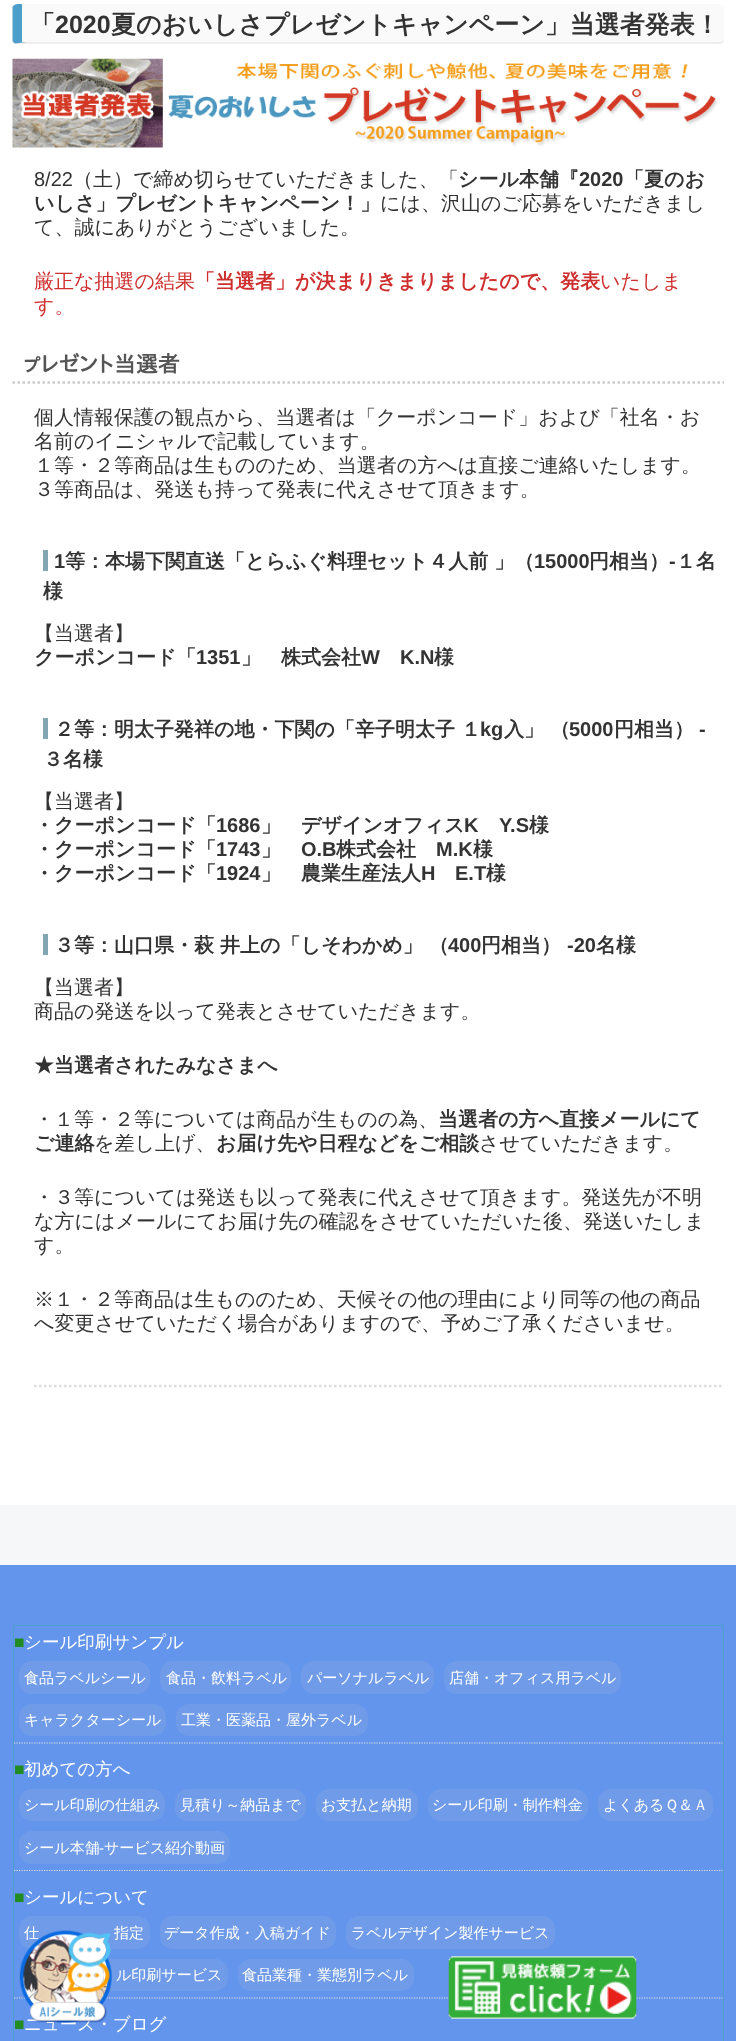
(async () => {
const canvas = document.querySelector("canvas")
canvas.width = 736
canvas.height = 2041
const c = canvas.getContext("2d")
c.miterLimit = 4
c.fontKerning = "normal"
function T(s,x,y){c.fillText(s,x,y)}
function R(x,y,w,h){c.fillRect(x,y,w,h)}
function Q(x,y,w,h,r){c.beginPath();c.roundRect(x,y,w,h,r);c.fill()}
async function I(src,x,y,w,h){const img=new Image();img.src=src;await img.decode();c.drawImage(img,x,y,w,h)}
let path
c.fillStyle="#fff"
R(0,0,736,2041)
c.fillStyle="#fafafa"
Q(13,4,711,40,5)
c.fillStyle="#eee"
path = new Path2D("M16 44l-1-1l11-1h693c2 0 4-1 5-2c0 1-2 4-3 4z")
c.fill(path)
c.fillStyle="#4b9fca"
path = new Path2D("M18 4h4v38h4.5l-11.5 1.5c-1-.5-2-1.5-2.5-2.5v-34c1-2 3-3 5.5-3z")
c.fill(path)
c.font="bold 25px WenQuanYi Zen Hei"
c.fillStyle="#333"
T("「",30,33)
c.font="bold 25px Liberation Sans"
T("2020",55,33)
c.font="bold 25px WenQuanYi Zen Hei"
T("夏のおいしさプレゼントキャンペーン」当選者発表！",111,33)
await I("1.png",12,58,706,90)
c.font="20px Liberation Sans"
T("8/22",34,186)
c.font="500 20px WenQuanYi Zen Hei"
T("（土）で締め切らせていただきました、「",73,186)
c.font="bold 20px WenQuanYi Zen Hei"
T("シール本舗『",458,186)
c.font="bold 20px Liberation Sans"
T("2020",579,186)
c.font="bold 20px WenQuanYi Zen Hei"
T("「夏のお",624,186)
T("いしさ」プレゼントキャンペーン！」",34,210)
c.font="500 20px WenQuanYi Zen Hei"
T("には、沢山のご応募をいただきまし",380,210)
T("て、誠にありがとうございました。",34,234)
c.fillStyle="#cf2e2e"
T("厳正な抽選の結果",34,288)
c.font="bold 20px WenQuanYi Zen Hei"
T("「当選者」が決まりきまりましたので、発表",195,288)
c.font="500 20px WenQuanYi Zen Hei"
T("いたしま",600,288)
T("す。",34,313)
path = new Path2D("M12.5 382.5h711.5")
c.strokeStyle="#ccc"
c.lineWidth=2.5
c.setLineDash([2.5,2.5])
c.stroke(path)
c.font="bold 22px IPAPGothic"
c.fillStyle="#555"
T("ㇷ゚レゼント当選者",23,372)
c.font="500 20px WenQuanYi Zen Hei"
c.fillStyle="#333"
T("個人情報保護の観点から、当選者は「クーポンコード」および「社名・お",34,424)
T("名前のイニシャルで記載しています。",34,448)
T("１等・２等商品は生もののため、当選者の方へは直接ご連絡いたします。",34,472)
T("３等商品は、発送も持って発表に代えさせて頂きます。",34,496)
c.fillStyle="#82a7b3"
R(43,550,5,21)
c.font="bold 20px Liberation Sans"
c.fillStyle="#333"
T("1",54,568)
c.font="bold 20px WenQuanYi Zen Hei"
T("等：本場下関直送「とらふぐ料理セット４人前 」（",65,568)
c.font="bold 20px Liberation Sans"
T("15000",534,568)
c.font="bold 20px WenQuanYi Zen Hei"
T("円相当）",589,568)
c.font="bold 20px Liberation Sans"
T("‐",669,568)
c.font="bold 20px WenQuanYi Zen Hei"
T("１名",676,568)
T("様",43,598)
c.font="500 20px WenQuanYi Zen Hei"
T("【当選者】",34,640)
c.font="bold 20px WenQuanYi Zen Hei"
T("クーポンコード「",34,664)
c.font="bold 20px Liberation Sans"
T("1351",196,664)
c.font="bold 20px WenQuanYi Zen Hei"
T("」　株式会社",241,664)
c.font="bold 20px Liberation Sans"
T("W",361,664)
T("K.N",400,664)
c.font="bold 20px WenQuanYi Zen Hei"
T("様",434,664)
c.fillStyle="#82a7b3"
R(43,718,5,21)
c.fillStyle="#333"
T("２等：明太子発祥の地・下関の「辛子明太子 １",54,736)
c.font="bold 20px Liberation Sans"
T("kg",480,736)
c.font="bold 20px WenQuanYi Zen Hei"
T("入」 （",504,736)
c.font="bold 20px Liberation Sans"
T("5000",569,736)
c.font="bold 20px WenQuanYi Zen Hei"
T("円相当）",614,736)
c.font="bold 20px Liberation Sans"
T("‐",699,736)
c.font="bold 20px WenQuanYi Zen Hei"
T("３名様",43,766)
c.font="500 20px WenQuanYi Zen Hei"
T("【当選者】",34,808)
c.font="bold 20px WenQuanYi Zen Hei"
T("・クーポンコード「",34,832)
c.font="bold 20px Liberation Sans"
T("1686",216,832)
c.font="bold 20px WenQuanYi Zen Hei"
T("」　デザインオフィス",261,832)
c.font="bold 20px Liberation Sans"
T("K",464,832)
T("Y.S",499,832)
c.font="bold 20px WenQuanYi Zen Hei"
T("様",529,832)
T("・クーポンコード「",34,856)
c.font="bold 20px Liberation Sans"
T("1743",216,856)
c.font="bold 20px WenQuanYi Zen Hei"
T("」",261,856)
c.font="bold 20px Liberation Sans"
T("O.B",301,856)
c.font="bold 20px WenQuanYi Zen Hei"
T("株式会社",336,856)
c.font="bold 20px Liberation Sans"
T("M.K",436,856)
c.font="bold 20px WenQuanYi Zen Hei"
T("様",473,856)
T("・クーポンコード「",34,880)
c.font="bold 20px Liberation Sans"
T("1924",216,880)
c.font="bold 20px WenQuanYi Zen Hei"
T("」　農業生産法人",261,880)
c.font="bold 20px Liberation Sans"
T("H",421,880)
T("E.T",455,880)
c.font="bold 20px WenQuanYi Zen Hei"
T("様",486,880)
c.fillStyle="#82a7b3"
R(43,934,5,21)
c.fillStyle="#333"
T("３等：山口県・萩 井上の「しそわかめ」 （",54,952)
c.font="bold 20px Liberation Sans"
T("400",448,952)
c.font="bold 20px WenQuanYi Zen Hei"
T("円相当）",481,952)
c.font="bold 20px Liberation Sans"
T("‐20",567,952)
c.font="bold 20px WenQuanYi Zen Hei"
T("名様",596,952)
c.font="500 20px WenQuanYi Zen Hei"
T("【当選者】",34,994)
T("商品の発送を以って発表とさせていただきます。",34,1018)
c.font="bold 20px WenQuanYi Zen Hei"
T("★当選者されたみなさまへ",34,1072)
c.font="500 20px WenQuanYi Zen Hei"
T("・１等・２等については商品が生ものの為、",34,1126)
c.font="bold 20px WenQuanYi Zen Hei"
T("当選者の方へ直接メールにて",438,1126)
T("ご連絡",34,1150)
c.font="500 20px WenQuanYi Zen Hei"
T("を差し上げ、",94,1150)
c.font="bold 20px WenQuanYi Zen Hei"
T("お届け先や日程などをご相談",216,1150)
c.font="500 20px WenQuanYi Zen Hei"
T("させていただきます。",479,1150)
T("・３等については発送も以って発表に代えさせて頂きます。発送先が不明",34,1204)
T("な方にはメールにてお届け先の確認をさせていただいた後、発送いたしま",34,1228)
T("す。",34,1252)
T("※１・２等商品は生もののため、天候その他の理由により同等の他の商品",34,1306)
T("へ変更させていただく場合がありますので、予めご了承くださいませ。",34,1330)
path = new Path2D("M34 1386h690")
c.strokeStyle="#ddd"
c.stroke(path)
c.fillStyle="#6495ed"
R(0,1565,736,476)
c.fillStyle="#f6f7f9"
R(0,1505,736,60)
c.strokeStyle="#4b9fca"
c.lineWidth=1
c.setLineDash([])
c.strokeRect(13.5,1625.5,710,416)
path = new Path2D("M14 1743h708.5")
c.strokeStyle="#ddd"
c.lineWidth=1.2
c.setLineDash([1.25,1.25])
c.stroke(path)
c.font="17.5px Liberation Sans"
c.fillStyle="#228b22"
T("■",14,1648)
c.font="500 17.5px WenQuanYi Zen Hei"
c.fillStyle="#fff"
T("シール印刷サンプル",24,1648)
c.fillStyle="#709be8"
Q(19,1661,131,33,13)
c.font="500 15px WenQuanYi Zen Hei"
c.fillStyle="#fff"
T("食品ラベルシール",24,1683)
c.fillStyle="#709be8"
Q(160,1661,131,33,13)
c.fillStyle="#fff"
T("食品・飲料ラベル",166,1683)
c.fillStyle="#709be8"
Q(301,1661,133,33,13)
c.fillStyle="#fff"
T("パーソナルラベル",307,1683)
c.fillStyle="#709be8"
Q(444,1661,177,33,13)
c.fillStyle="#fff"
T("店舗・オフィス用ラベル",449,1683)
c.fillStyle="#709be8"
Q(19,1704,147,32,13)
c.fillStyle="#fff"
T("キャラクターシール",24,1725)
c.fillStyle="#709be8"
Q(176,1704,192,32,13)
c.fillStyle="#fff"
T("工業・医薬品・屋外ラベル",181,1725)
path = new Path2D("M14 1870.5h708.5")
c.stroke(path)
c.font="17.5px Liberation Sans"
c.fillStyle="#228b22"
T("■",14,1775)
c.font="500 17.5px WenQuanYi Zen Hei"
c.fillStyle="#fff"
T("初めての方へ",24,1775)
c.fillStyle="#709be8"
Q(19,1789,146,32,13)
c.font="500 15px WenQuanYi Zen Hei"
c.fillStyle="#fff"
T("シール印刷の仕組み",24,1810)
c.fillStyle="#709be8"
Q(175,1789,131,32,13)
c.fillStyle="#fff"
T("見積り～納品まで",180,1810)
c.fillStyle="#709be8"
Q(316,1789,102,32,13)
c.fillStyle="#fff"
T("お支払と納期",321,1810)
c.fillStyle="#709be8"
Q(428,1789,160,32,13)
c.fillStyle="#fff"
T("シール印刷・制作料金",432,1810)
c.fillStyle="#709be8"
Q(598,1789,115,32,13)
c.fillStyle="#fff"
T("よくあるＱ＆Ａ",603,1810)
c.fillStyle="#709be8"
Q(19,1831,211,33,13)
c.fillStyle="#fff"
T("シール本舗",24,1853)
c.font="15px Liberation Sans"
T("‐",99,1853)
c.font="500 15px WenQuanYi Zen Hei"
T("サービス紹介動画",104,1853)
path = new Path2D("M14 1998h708.5")
c.stroke(path)
c.font="17.5px Liberation Sans"
c.fillStyle="#228b22"
T("■",14,1903)
c.font="500 17.5px WenQuanYi Zen Hei"
c.fillStyle="#fff"
T("シールについて",24,1903)
c.fillStyle="#709be8"
Q(19,1916,131,33,13)
c.font="500 15px WenQuanYi Zen Hei"
c.fillStyle="#fff"
T("仕",24,1938)
T("指定",114,1938)
c.fillStyle="#709be8"
Q(160,1916,176,33,13)
c.fillStyle="#fff"
T("データ作成・入稿ガイド",164,1938)
c.fillStyle="#709be8"
Q(346,1916,209,33,13)
c.fillStyle="#fff"
T("ラベルデザイン製作サービス",351,1938)
c.fillStyle="#709be8"
Q(19,1959,209,32,13)
c.fillStyle="#fff"
T("ル印刷サービス",116,1980)
c.fillStyle="#709be8"
Q(238,1959,176,32,13)
c.fillStyle="#fff"
T("食品業種・業態別ラベル",242,1980)
c.font="17.5px Liberation Sans"
c.fillStyle="#228b22"
T("■",14,2030)
c.font="500 17.5px WenQuanYi Zen Hei"
c.fillStyle="#fff"
T("ニュース・ブログ",24,2030)
await I("2.png",448,1956,189,63)
await I("3.png",19,1930,93,93)
})()
